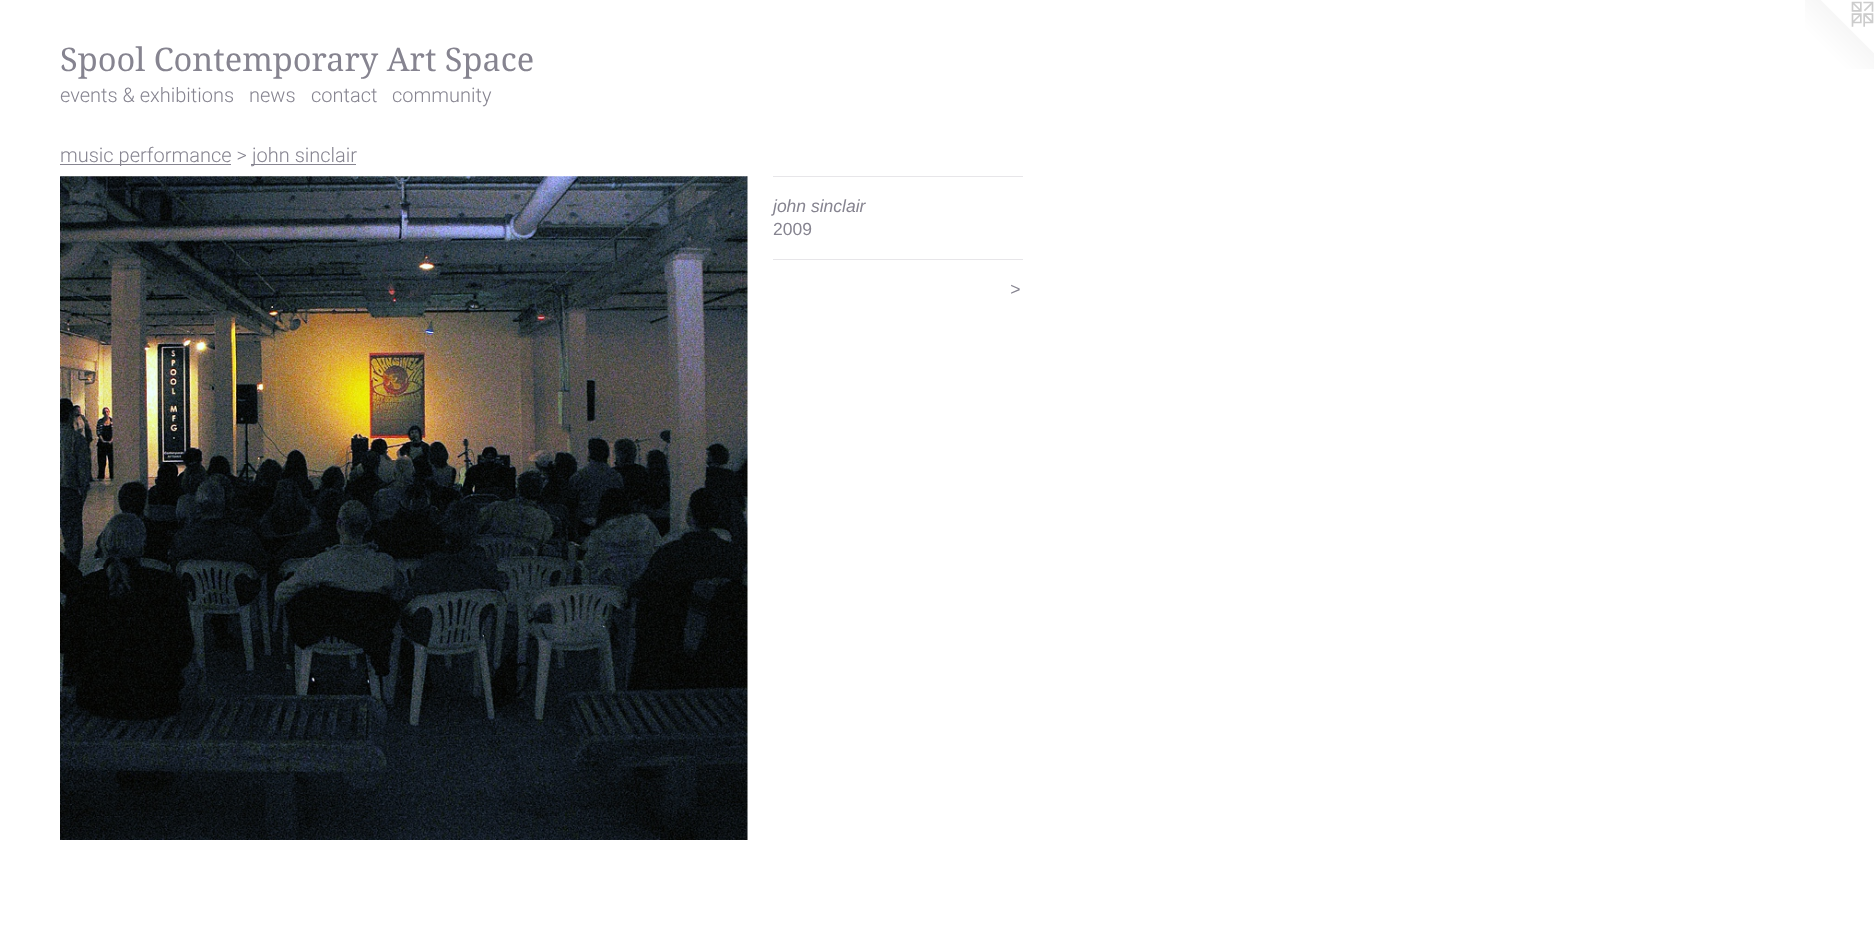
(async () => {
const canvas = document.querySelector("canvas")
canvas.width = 1874
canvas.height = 948
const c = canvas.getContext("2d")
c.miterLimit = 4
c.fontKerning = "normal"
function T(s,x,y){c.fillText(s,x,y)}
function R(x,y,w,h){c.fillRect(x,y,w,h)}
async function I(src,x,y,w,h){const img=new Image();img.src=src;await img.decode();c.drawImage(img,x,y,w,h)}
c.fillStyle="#fff"
R(0,0,1874,948)
c.font="32.5px Droid Serif"
c.fillStyle="#868490"
T("Spool Contemporary Art Space",60,71)
await I("1.png",1805,0,69,69)
c.font="300 20px Roboto"
T("events & exhibitions",60,102)
T("news",249,102)
T("contact",311,102)
T("community",392,102)
R(60,164,171,1)
T("music performance >",60,162)
R(251,164,105,1)
T("john sinclair",252,162)
await I("2.png",60,176,688,664)
c.fillStyle="#e7e6e9"
R(773,176,250,1)
c.font="italic 17.5px Liberation Sans"
c.fillStyle="#868490"
T("john sinclair",773,212)
c.font="17.5px Liberation Sans"
T("2009",773,235)
c.fillStyle="#e7e6e9"
R(773,259,250,1)
c.letterSpacing="1px"
c.font="italic 17.5px Liberation Sans"
c.fillStyle="#868490"
T(">",1010,295)
})()
